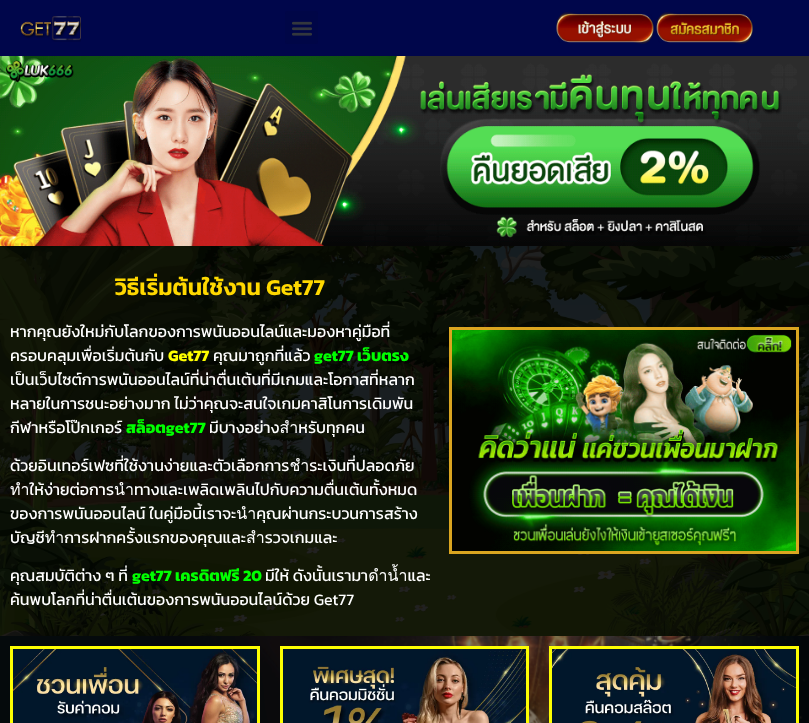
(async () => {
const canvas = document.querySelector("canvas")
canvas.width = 809
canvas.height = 723
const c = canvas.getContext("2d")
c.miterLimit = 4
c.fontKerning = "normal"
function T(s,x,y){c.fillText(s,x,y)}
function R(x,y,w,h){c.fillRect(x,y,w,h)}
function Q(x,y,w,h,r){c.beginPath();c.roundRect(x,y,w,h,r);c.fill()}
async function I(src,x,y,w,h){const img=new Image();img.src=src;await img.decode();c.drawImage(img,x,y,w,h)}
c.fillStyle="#00064b"
R(0,0,809,723)
await I("1.png",20,16,61,26)
c.fillStyle="#000647"
Q(285,11,33,33,3)
await I("2.png",292,21,20,15)
await I("3.png",556,12,98,32)
await I("4.png",656,12,97,32)
await I("5.png",0,56,809,190)
await I("6.png",0,246,809,390)
c.font="600 23px Kanit"
c.fillStyle="#ffd800"
T("วิธีเริ่มต้นใช้งาน Get77",115,295)
c.font="16px Kanit"
c.fillStyle="#fff"
T("หากคุณยังใหม่กับโลกของการพนันออนไลน์และมองหาคู่มือที่",10,337)
T("ครอบคลุมเพื่อเริ่มต้นกับ",10,361)
c.font="bold 16px Kanit"
c.fillStyle="#ff0"
T("Get77",168,361)
c.font="16px Kanit"
c.fillStyle="#fff"
T("คุณมาถูกที่แล้ว",213,361)
c.font="bold 16px Kanit"
c.fillStyle="#0f0"
T("get77 เว็บตรง",314,361)
c.font="16px Kanit"
c.fillStyle="#fff"
T("เป็นเว็บไซต์การพนันออนไลน์ที่น่าตื่นเต้นที่มีเกมและโอกาสที่หลาก",10,385)
T("หลายในการชนะอย่างมาก ไม่ว่าคุณจะสนใจเกมคาสิโนการเดิมพัน",10,409)
T("กีฬาหรือโป๊กเกอร์",10,433)
c.font="bold 16px Kanit"
c.fillStyle="#0f0"
T("สล็อตget77",126,433)
c.font="16px Kanit"
c.fillStyle="#fff"
T("มีบางอย่างสำหรับทุกคน",209,433)
T("ด้วยอินเทอร์เฟซที่ใช้งานง่ายและตัวเลือกการชำระเงินที่ปลอดภัย",10,471)
T("ทำให้ง่ายต่อการนำทางและเพลิดเพลินไปกับความตื่นเต้นทั้งหมด",10,495)
T("ของการพนันออนไลน์ ในคู่มือนี้เราจะนำคุณผ่านกระบวนการสร้าง",10,519)
T("บัญชีทำการฝากครั้งแรกของคุณและสำรวจเกมและ",10,543)
T("คุณสมบัติต่าง ๆ ที่",10,581)
c.font="bold 16px Kanit"
c.fillStyle="#0f0"
T("get77 เครดิตฟรี 20",132,581)
c.font="16px Kanit"
c.fillStyle="#fff"
T("มีให้ ดังนั้นเรามาดำน้ำและ",265,581)
T("ค้นพบโลกที่น่าตื่นเต้นของการพนันออนไลน์ด้วย Get77",10,605)
c.strokeStyle="#daa520"
c.lineWidth=3
c.strokeRect(450.5,328.5,347,224)
await I("7.png",452,330,344,221)
await I("8.png",0,636,809,87)
c.strokeStyle="#fdfe02"
c.strokeRect(11.5,647.5,247,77)
await I("9.png",13,649,244,74)
c.strokeRect(281.5,647.5,246,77)
await I("10.png",283,649,243,74)
c.strokeRect(550.5,647.5,247,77)
await I("11.png",552,649,244,74)
})()
